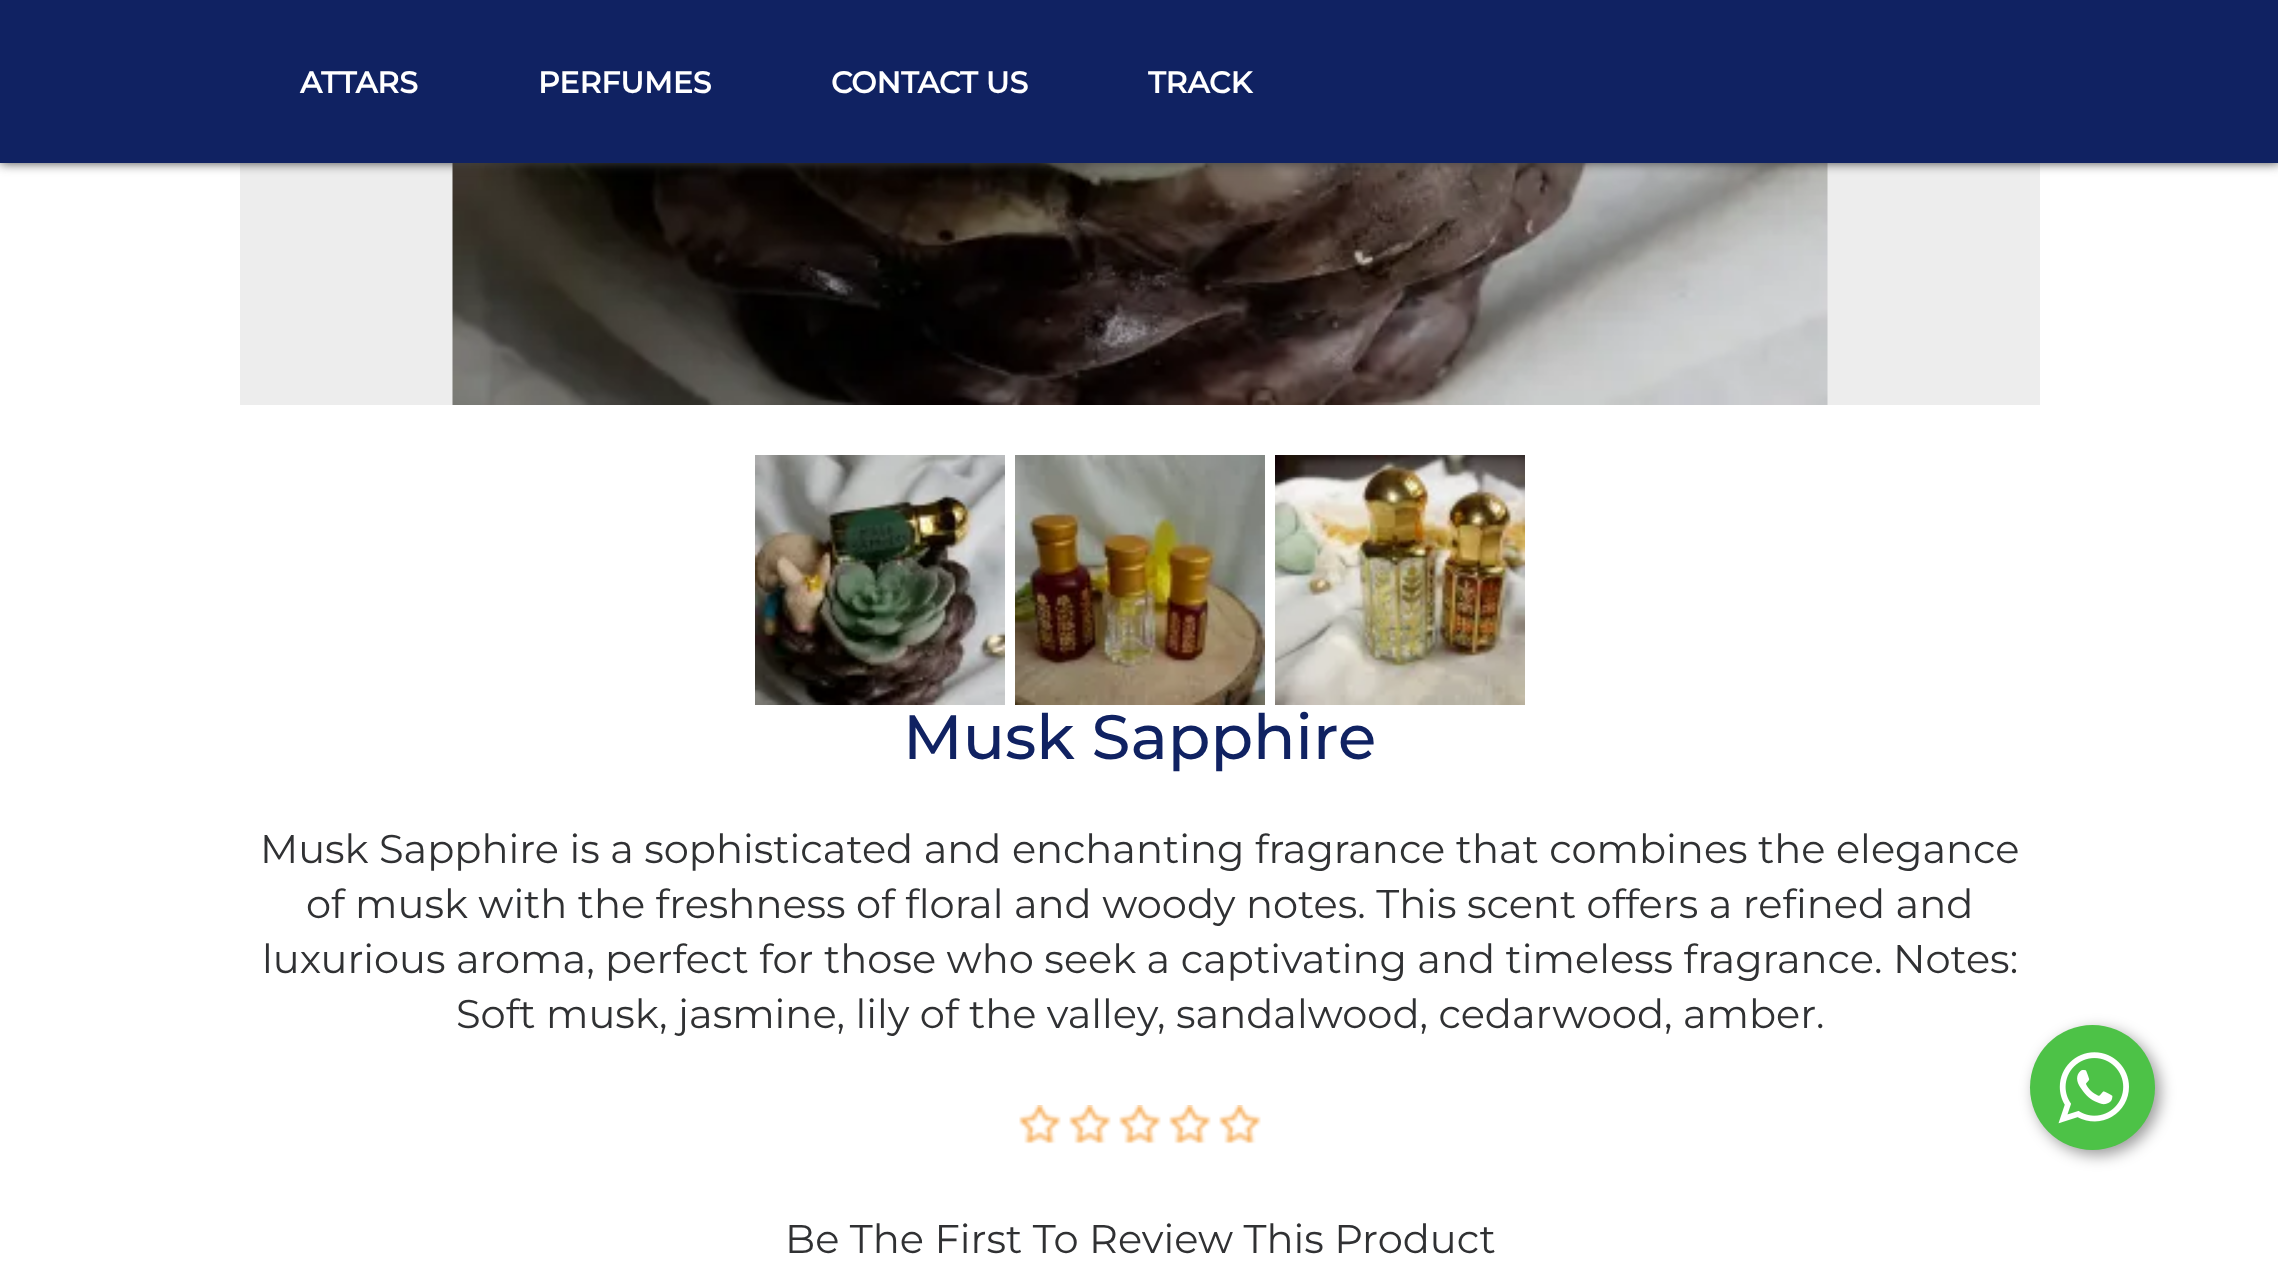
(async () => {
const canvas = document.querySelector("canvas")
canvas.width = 2278
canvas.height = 1275
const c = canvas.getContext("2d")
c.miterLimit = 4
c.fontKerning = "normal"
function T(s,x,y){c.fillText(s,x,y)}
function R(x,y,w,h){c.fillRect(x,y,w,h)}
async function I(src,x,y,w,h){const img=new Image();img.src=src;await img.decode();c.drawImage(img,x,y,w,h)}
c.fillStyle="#fff"
R(0,0,2278,1275)
c.fillStyle="#ededed"
R(240,163,1800,242)
await I("1.png",452,163,1376,242)
c.fillStyle="#444"
c.filter="blur(6px)"
c.beginPath()
c.rect(0,0,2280,163)
c.fill()
c.filter="none"
c.fillStyle="#102262"
R(0,0,2278,163)
c.font="bold 30px Montserrat"
c.fillStyle="#fff"
T("ATTARS",300,93)
T("PERFUMES",538,93)
T("CONTACT US",831,93)
T("TRACK",1148,93)
await I("2.png",755,455,250,250)
await I("3.png",1015,455,250,250)
await I("4.png",1275,455,250,250)
c.font="500 62.5px Montserrat"
c.fillStyle="#102262"
T("Musk Sapphire",903,759)
c.font="40px Montserrat"
c.fillStyle="#303133"
T("Musk Sapphire is a sophisticated and enchanting fragrance that combines the elegance",260,863)
T("of musk with the freshness of floral and woody notes. This scent offers a refined and",306,918)
T("luxurious aroma, perfect for those who seek a captivating and timeless fragrance. Notes:",262,973)
T("Soft musk, jasmine, lily of the valley, sandalwood, cedarwood, amber.",456,1028)
await I("5.png",1019,1105,242,39)
T("Be The First To Review This Product",785,1253)
c.fillStyle="#00000066"
c.filter="blur(7.5px)"
c.beginPath()
c.roundRect(2035,1030,125,125,62.5)
c.fill()
c.filter="none"
c.fillStyle="#4dc247"
c.beginPath()
c.arc(2092.5,1087.5,62.5,0,7)
c.fill()
await I("6.png",2058,1052,71,72)
})()
